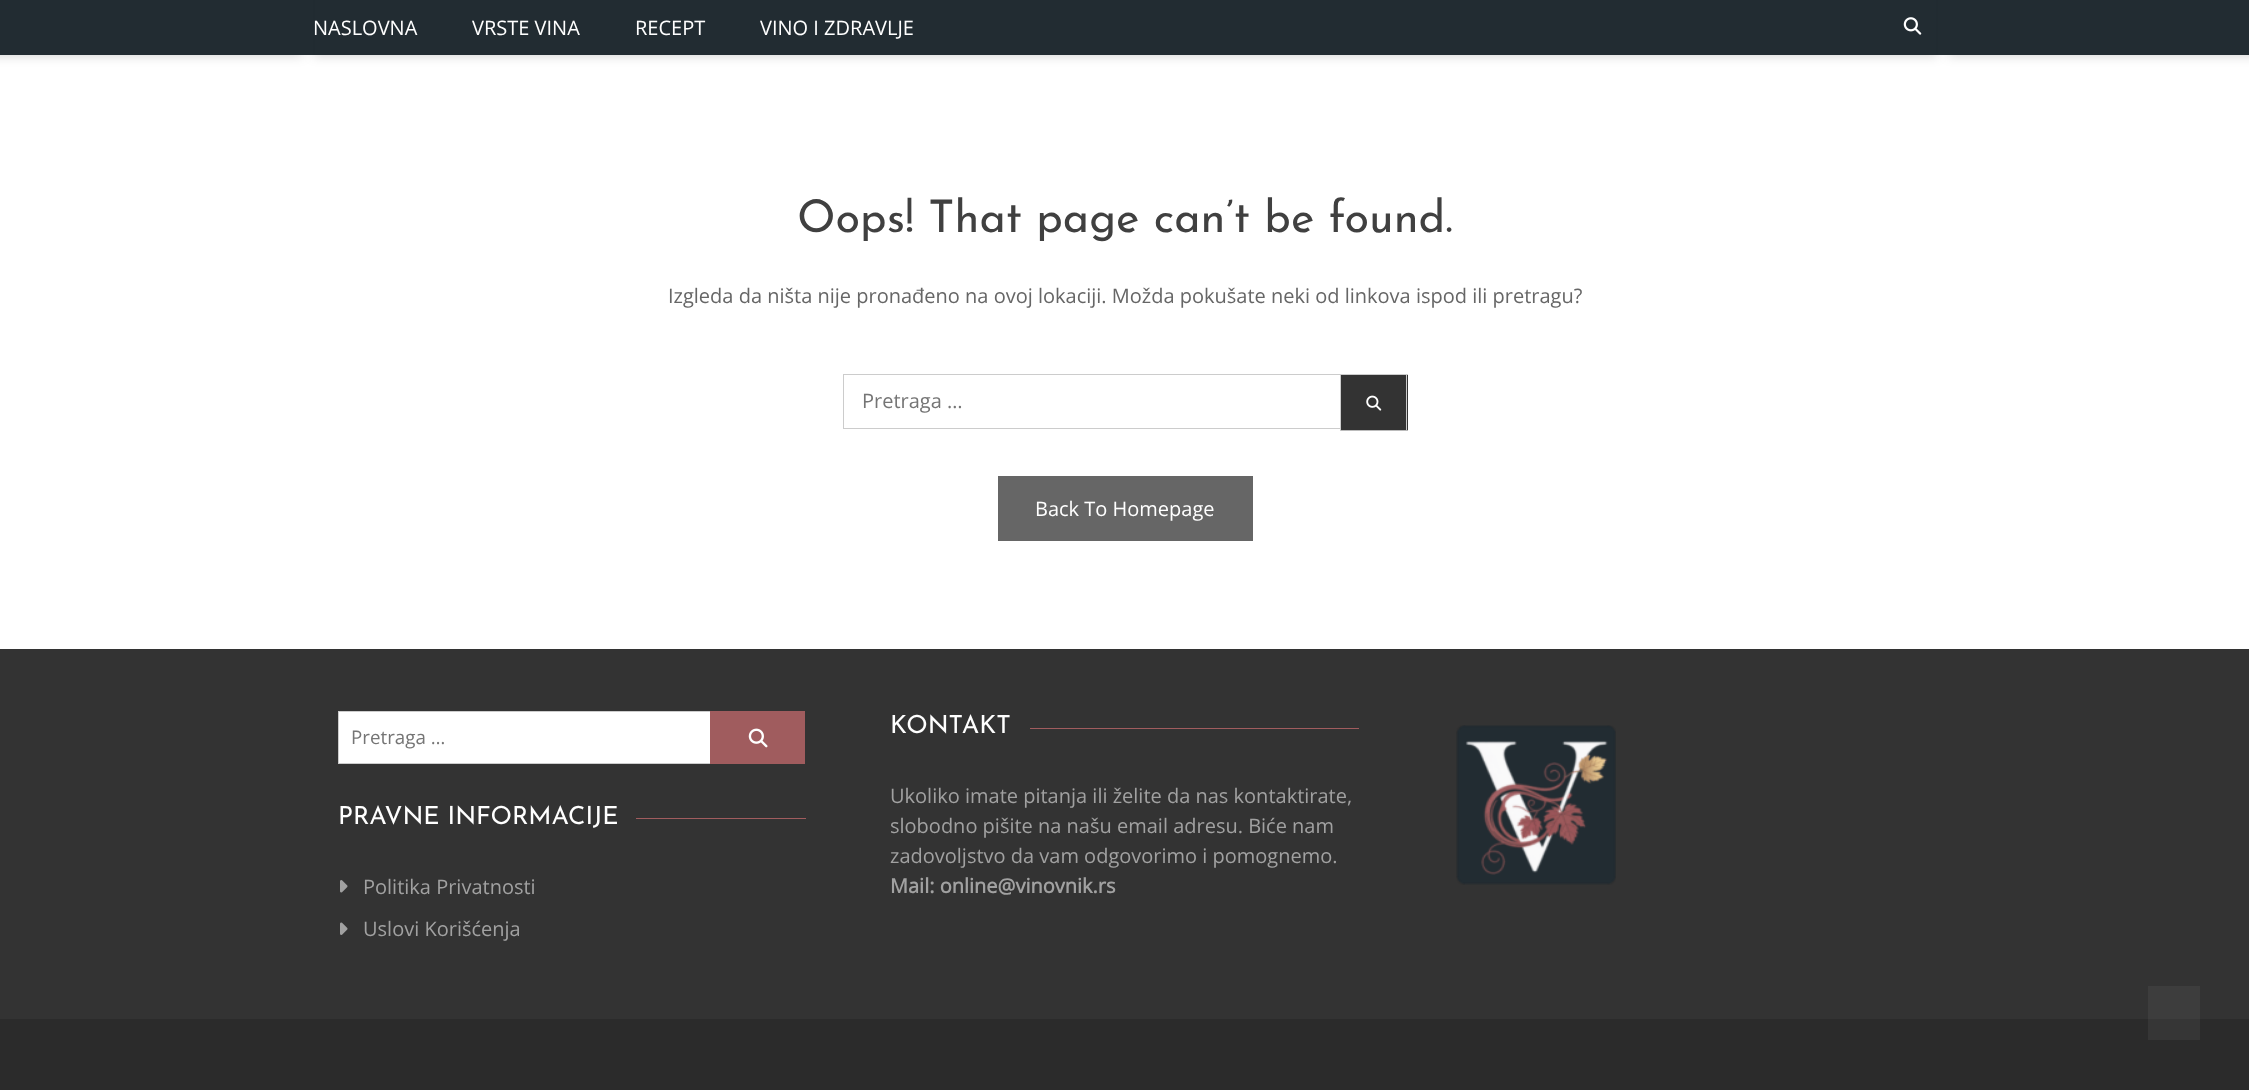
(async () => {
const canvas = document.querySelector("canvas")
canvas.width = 2249
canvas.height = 1090
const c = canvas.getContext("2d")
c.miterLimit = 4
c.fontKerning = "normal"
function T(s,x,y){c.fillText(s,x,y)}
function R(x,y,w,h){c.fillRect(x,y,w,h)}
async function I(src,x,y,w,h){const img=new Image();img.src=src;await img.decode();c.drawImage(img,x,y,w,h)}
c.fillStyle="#fff"
R(0,0,2249,1090)
c.fillStyle="#00000033"
c.filter="blur(6px)"
c.beginPath()
c.rect(313,0,1625,55)
c.fill()
c.filter="none"
c.fillStyle="#222c32"
R(313,0,1625,55)
c.fillStyle="#00000033"
c.filter="blur(6px)"
c.beginPath()
c.rect(-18,0,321,55)
c.fill()
c.filter="none"
c.fillStyle="#222c32"
R(0,0,313,55)
c.font="20px Open Sans"
c.fillStyle="#fff"
T("NASLOVNA",313,35)
T("VRSTE VINA",472,35)
T("RECEPT",635,35)
T("VINO I ZDRAVLJE",760,35)
await I("1.png",1903,17,19,18)
c.fillStyle="#00000033"
c.filter="blur(6px)"
c.beginPath()
c.rect(1948,0,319,55)
c.fill()
c.filter="none"
c.fillStyle="#222c32"
R(1938,0,311,55)
c.font="100 45px Josefin Sans"
c.fillStyle="#404040"
T("Oops! That page can’t be found.",797,232)
c.font="20px Open Sans"
c.fillStyle="#666"
T("Izgleda da ništa nije pronađeno na ovoj lokaciji. Možda pokušate neki od linkova ispod ili pretragu?",668,303)
c.strokeStyle="#ccc"
c.strokeRect(843.5,374.5,499,54)
c.fillStyle="#757575"
T("Pretraga …",862,408)
c.fillStyle="#333"
R(1341,375,67,55)
c.fillStyle="#ccc"
R(1340,374,68,1)
R(1406,374,1,57)
c.fillStyle="#bbb"
R(1340,430,68,1)
c.fillStyle="#ccc"
R(1340,374,1,57)
await I("2.png",1366,395,16,16)
c.fillStyle="#666"
R(998,476,255,65)
c.fillStyle="#fff"
T("Back To Homepage",1035,516)
c.fillStyle="#333"
R(0,649,2249,370)
c.fillStyle="#3d3d3d"
R(2148,986,52,33)
c.fillStyle="#fff"
R(339,712,371,51)
c.strokeRect(338.5,711.5,374,52)
c.font="18.75px Open Sans"
c.fillStyle="#757575"
T("Pretraga …",351,744)
c.fillStyle="#a05c5e"
R(710,711,95,53)
await I("3.png",748,728,20,20)
c.font="100 25px Josefin Sans"
c.fillStyle="#fff"
T("PRAVNE INFORMACIJE",338,824)
c.fillStyle="#a05c5e"
R(636,818,170,1)
await I("4.png",340,880,8,13)
c.font="20px Open Sans"
c.fillStyle="#a1a1a1"
T("Politika Privatnosti",363,894)
await I("5.png",340,922,8,13)
T("Uslovi Korišćenja",363,936)
c.font="100 25px Josefin Sans"
c.fillStyle="#fff"
T("KONTAKT",890,733)
c.fillStyle="#a05c5e"
R(1030,728,329,1)
c.font="20px Open Sans"
c.fillStyle="#a1a1a1"
T("Ukoliko imate pitanja ili želite da nas kontaktirate,",890,803)
T("slobodno pišite na našu email adresu. Biće nam",890,833)
T("zadovoljstvo da vam odgovorimo i pomognemo.",890,863)
c.font="bold 20px Open Sans"
T("Mail: online@vinovnik.rs",890,893)
await I("6.png",1456,725,160,160)
c.fillStyle="#2b2b2b"
R(0,1019,2249,71)
c.fillStyle="#363636"
R(2148,1019,52,21)
})()
